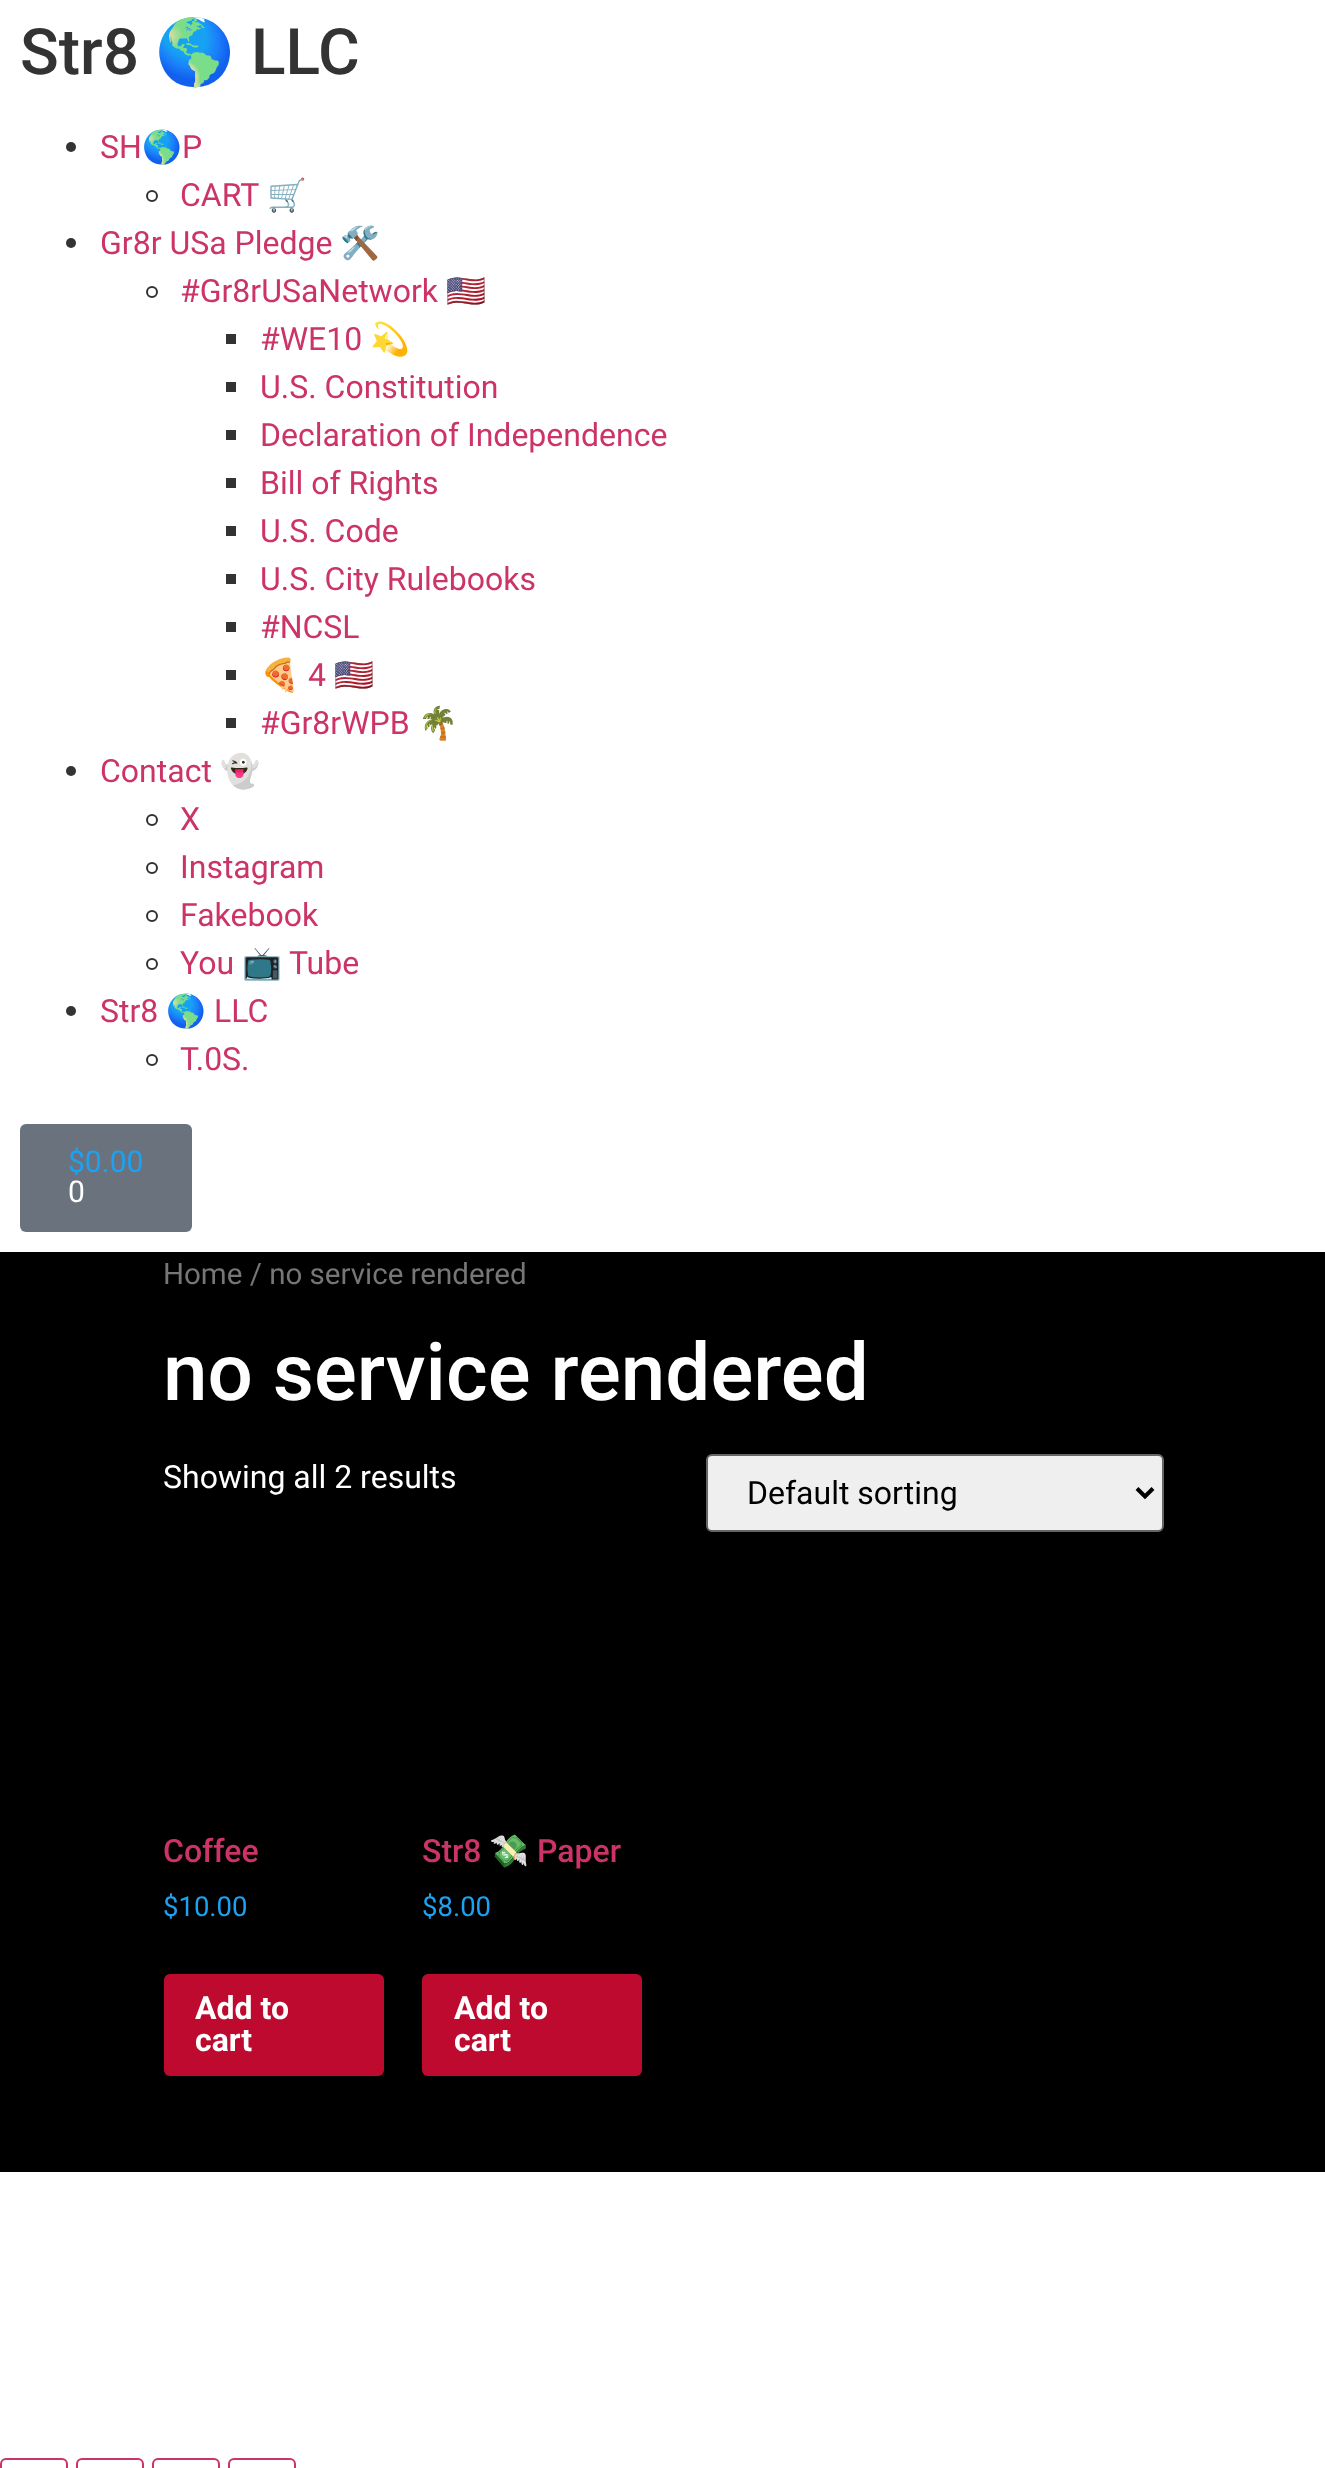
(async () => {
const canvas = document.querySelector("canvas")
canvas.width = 1325
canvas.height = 2468
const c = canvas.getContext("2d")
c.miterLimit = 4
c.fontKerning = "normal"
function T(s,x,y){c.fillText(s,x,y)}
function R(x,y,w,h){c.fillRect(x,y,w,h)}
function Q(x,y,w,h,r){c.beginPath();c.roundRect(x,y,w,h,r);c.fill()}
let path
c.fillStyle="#fff"
R(0,0,1325,2468)
c.font="500 64px Roboto"
c.fillStyle="#333"
T("Str8",20,74)
c.font="64px Noto Color Emoji"
T("🌎",155,74)
c.font="500 64px Roboto"
T("LLC",251,74)
c.beginPath()
c.arc(71,147,5,0,7)
c.fill()
c.font="32px Roboto"
c.fillStyle="#c36"
T("SH",100,158)
c.font="32px Noto Color Emoji"
T("🌎",142,158)
c.font="32px Roboto"
T("P",182,158)
c.beginPath()
c.arc(152,196,5,0,7)
c.strokeStyle="#333"
c.lineWidth=2
c.stroke()
T("CART",180,206)
c.font="32px Noto Color Emoji"
T("🛒",267,206)
c.fillStyle="#333"
c.beginPath()
c.arc(71,243,5,0,7)
c.fill()
c.font="32px Roboto"
c.fillStyle="#c36"
T("Gr8r USa Pledge",100,254)
c.font="32px Noto Color Emoji"
T("🛠️",340,254)
c.beginPath()
c.arc(152,292,5,0,7)
c.stroke()
c.font="32px Roboto"
T("#Gr8rUSaNetwork",180,302)
c.font="32px Noto Color Emoji"
T("🇺🇸",446,302)
c.fillStyle="#333"
R(226,334,10,10)
c.font="32px Roboto"
c.fillStyle="#c36"
T("#WE10",260,350)
c.font="32px Noto Color Emoji"
T("💫",370,350)
c.fillStyle="#333"
R(226,382,10,10)
c.font="32px Roboto"
c.fillStyle="#c36"
T("U.S. Constitution",260,398)
c.fillStyle="#333"
R(226,430,10,10)
c.fillStyle="#c36"
T("Declaration of Independence",260,446)
c.fillStyle="#333"
R(226,478,10,10)
c.fillStyle="#c36"
T("Bill of Rights",260,494)
c.fillStyle="#333"
R(226,526,10,10)
c.fillStyle="#c36"
T("U.S. Code",260,542)
c.fillStyle="#333"
R(226,574,10,10)
c.fillStyle="#c36"
T("U.S. City Rulebooks",260,590)
c.fillStyle="#333"
R(226,622,10,10)
c.fillStyle="#c36"
T("#NCSL",260,638)
c.fillStyle="#333"
R(226,670,10,10)
c.font="32px Noto Color Emoji"
c.fillStyle="#c36"
T("🍕",260,686)
c.font="32px Roboto"
T("4",308,686)
c.font="32px Noto Color Emoji"
T("🇺🇸",334,686)
c.fillStyle="#333"
R(226,718,10,10)
c.font="32px Roboto"
c.fillStyle="#c36"
T("#Gr8rWPB",260,734)
c.font="32px Noto Color Emoji"
T("🌴",418,734)
c.fillStyle="#333"
c.beginPath()
c.arc(71,771,5,0,7)
c.fill()
c.font="32px Roboto"
c.fillStyle="#c36"
T("Contact",100,782)
c.font="32px Noto Color Emoji"
T("👻",220,782)
c.beginPath()
c.arc(152,820,5,0,7)
c.stroke()
c.font="32px Roboto"
T("X",180,830)
c.beginPath()
c.arc(152,868,5,0,7)
c.stroke()
T("Instagram",180,878)
c.beginPath()
c.arc(152,916,5,0,7)
c.stroke()
T("Fakebook",180,926)
c.beginPath()
c.arc(152,964,5,0,7)
c.stroke()
T("You",180,974)
c.font="32px Noto Color Emoji"
T("📺",242,974)
c.font="32px Roboto"
T("Tube",289,974)
c.fillStyle="#333"
c.beginPath()
c.arc(71,1011,5,0,7)
c.fill()
c.fillStyle="#c36"
T("Str8",100,1022)
c.font="32px Noto Color Emoji"
T("🌎",166,1022)
c.font="32px Roboto"
T("LLC",214,1022)
c.beginPath()
c.arc(152,1060,5,0,7)
c.stroke()
T("T.0S.",180,1070)
c.fillStyle="#69727d"
Q(20,1124,172,108,6)
c.font="30px Roboto"
c.fillStyle="#1da1f2"
T("$0.00",68,1172)
c.fillStyle="#fff"
T("0",68,1202)
c.fillStyle="#000"
R(0,1252,1325,920)
c.font="29.5px Roboto"
c.fillStyle="#767676"
T("Home / no service rendered",163,1284)
c.font="500 80px Roboto"
c.fillStyle="#fff"
T("no service rendered",163,1400)
c.font="32px Roboto"
T("Showing all 2 results",163,1488)
c.fillStyle="#efefef"
c.beginPath()
c.roundRect(707,1455,456,76,5)
c.fill()
c.strokeStyle="#666"
c.stroke()
path = new Path2D("M1137 1488.5l8 8l8-8")
c.strokeStyle="#000"
c.lineWidth=4
c.stroke(path)
c.fillStyle="#000"
T("Default sorting",747,1504)
c.font="500 32px Roboto"
c.fillStyle="#c36"
T("Coffee",163,1862)
c.font="27.5px Roboto"
c.fillStyle="#1da1f2"
T("$10.00",163,1916)
c.fillStyle="#bf0a30"
Q(164,1974,220,102,6)
c.font="bold 32px Roboto"
c.fillStyle="#fff"
T("Add to",195,2019)
T("cart",195,2051)
c.font="500 32px Roboto"
c.fillStyle="#c36"
T("Str8",422,1862)
c.font="32px Noto Color Emoji"
T("💸",489,1862)
c.font="500 32px Roboto"
T("Paper",537,1862)
c.font="27.5px Roboto"
c.fillStyle="#1da1f2"
T("$8.00",422,1916)
c.fillStyle="#bf0a30"
Q(422,1974,220,102,6)
c.font="bold 32px Roboto"
c.fillStyle="#fff"
T("Add to",454,2019)
T("cart",454,2051)
c.beginPath()
c.roundRect(1,2459,66,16,5)
c.strokeStyle="#c36"
c.lineWidth=2
c.stroke()
c.beginPath()
c.roundRect(77,2459,66,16,5)
c.stroke()
c.beginPath()
c.roundRect(153,2459,66,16,5)
c.stroke()
c.beginPath()
c.roundRect(229,2459,66,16,5)
c.stroke()
})()
